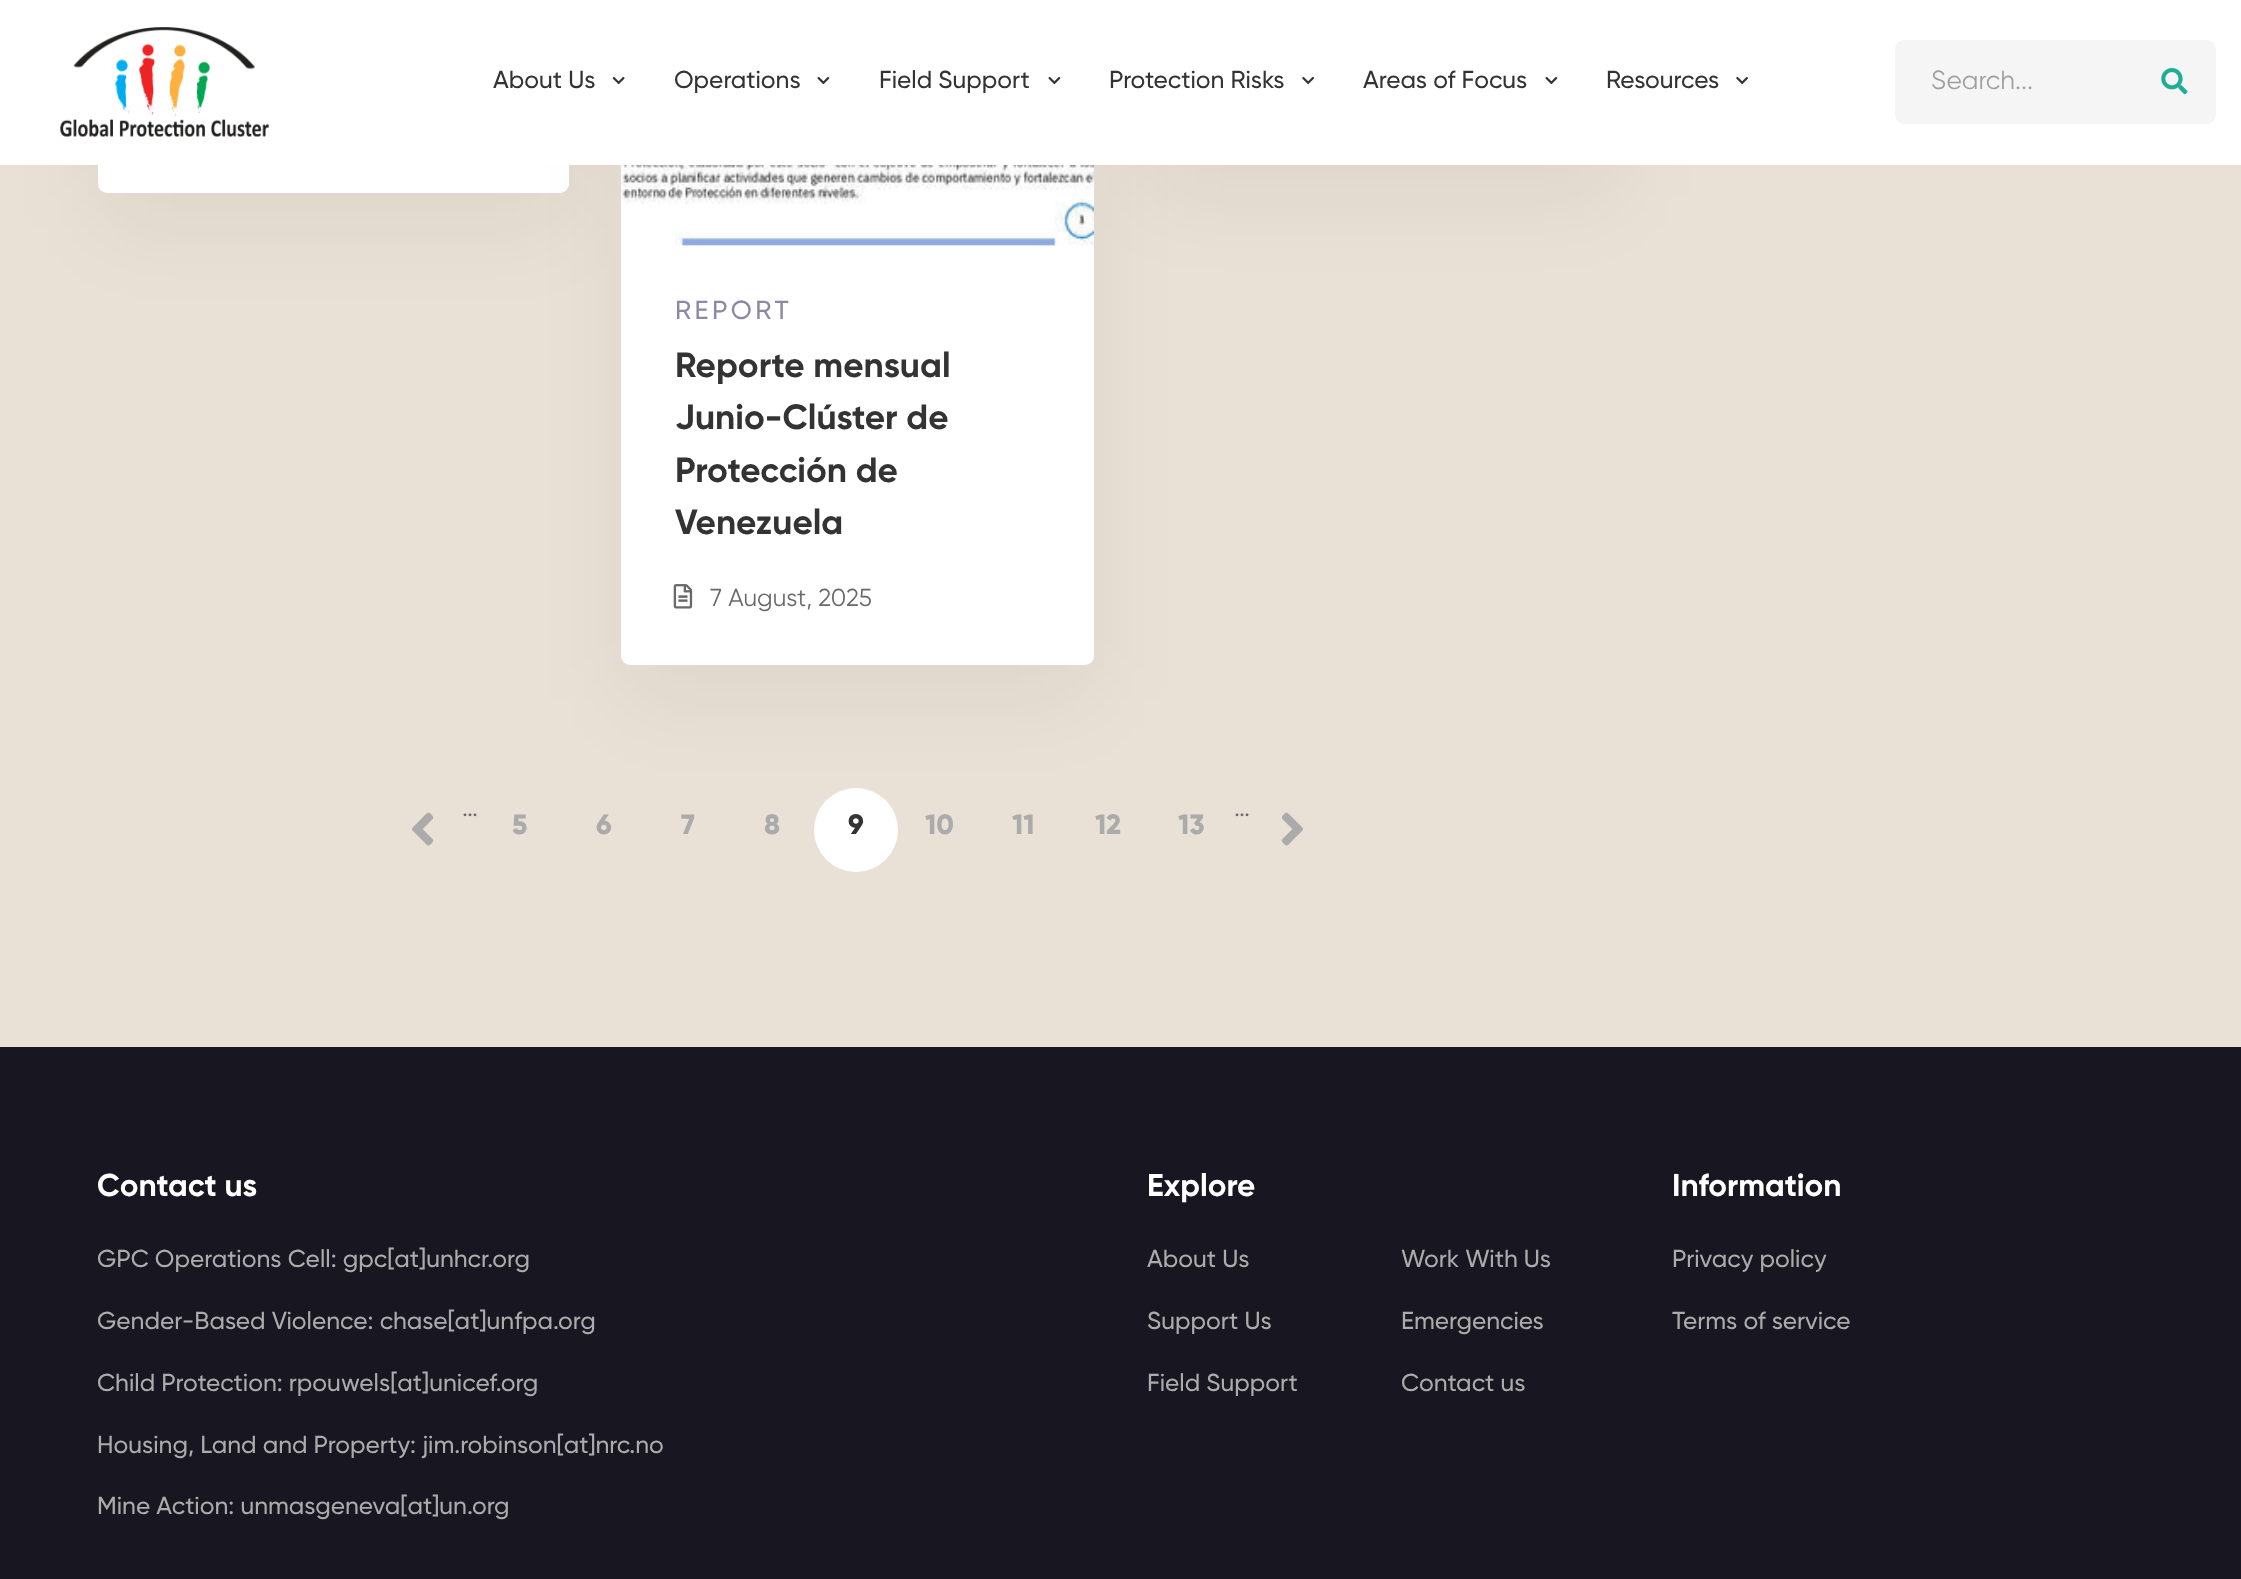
(async () => {
const canvas = document.querySelector("canvas")
canvas.width = 2241
canvas.height = 1579
const c = canvas.getContext("2d")
c.miterLimit = 4
c.fontKerning = "normal"
function T(s,x,y){c.fillText(s,x,y)}
function R(x,y,w,h){c.fillRect(x,y,w,h)}
function Q(x,y,w,h,r){c.beginPath();c.roundRect(x,y,w,h,r);c.fill()}
async function I(src,x,y,w,h){const img=new Image();img.src=src;await img.decode();c.drawImage(img,x,y,w,h)}
c.fillStyle="#eae1d6"
R(0,0,2241,1579)
c.fillStyle="#0000000d"
c.filter="blur(44px)"
c.beginPath()
c.roundRect(98,-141,471,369,9)
c.fill()
c.filter="none"
c.fillStyle="#fff"
Q(98,-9,471,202,9)
c.fillStyle="#0000000d"
c.filter="blur(44px)"
c.beginPath()
c.roundRect(1146,-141,473,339,9)
c.fill()
c.filter="none"
c.filter="blur(44px)"
c.beginPath()
c.roundRect(621,-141,473,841,9)
c.fill()
c.filter="none"
c.fillStyle="#fff"
Q(621,-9,473,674,9)
R(0,0,2241,165)
await I("1.png",60,27,209,110)
c.font="500 24.5px Gilroy"
c.fillStyle="#333"
T("About Us",493,88)
await I("2.png",612,76,13,9)
T("Operations",674,88)
await I("3.png",817,76,13,9)
T("Field Support",879,88)
await I("3.png",1048,76,13,9)
T("Protection Risks",1109,88)
await I("4.png",1302,76,12,9)
T("Areas of Focus",1363,88)
await I("3.png",1545,76,13,9)
T("Resources",1606,88)
await I("4.png",1736,76,12,9)
c.fillStyle="#f5f5f5"
Q(1895,40,321,84,9)
c.font="26.25px Gilroy"
c.fillStyle="#9f9f9f"
T("Search...",1931,89)
await I("5.png",2161,68,27,27)
await I("6.png",621,165,473,81)
c.letterSpacing="3.5px"
c.font="500 26.25px Gilroy"
c.fillStyle="#8c89a2"
T("REPORT",675,319)
c.letterSpacing="0px"
c.font="bold 35px Gilroy"
c.fillStyle="#333"
T("Reporte mensual",675,377)
T("Junio-Clúster de",675,429)
T("Protección de",675,482)
T("Venezuela",675,534)
await I("7.png",673,584,20,25)
c.font="24.5px Gilroy"
c.fillStyle="#696969"
T("7 August, 2025",710,606)
await I("8.png",412,812,22,34)
c.font="26.25px Gilroy"
T("…",462,816)
c.font="800 28px Gilroy"
c.fillStyle="#ababab"
T("5",512,834)
T("6",596,834)
T("7",681,834)
T("8",764,834)
c.fillStyle="#fff"
c.beginPath()
c.arc(856,830,42,0,7)
c.fill()
c.fillStyle="#333"
T("9",848,834)
c.fillStyle="#ababab"
T("10",925,834)
T("11",1012,834)
T("12",1095,834)
T("13",1178,834)
c.font="26.25px Gilroy"
c.fillStyle="#696969"
T("…",1234,816)
await I("9.png",1281,812,22,34)
c.fillStyle="#171621"
R(0,1047,2241,532)
c.font="bold 31.5px Gilroy"
c.fillStyle="#fff"
T("Contact us",97,1196)
c.font="500 24.5px Gilroy"
c.fillStyle="#ababab"
T("GPC Operations Cell: gpc[at]unhcr.org",97,1267)
T("Gender-Based Violence: chase[at]unfpa.org",97,1329)
T("Child Protection: rpouwels[at]unicef.org",97,1391)
T("Housing, Land and Property: jim.robinson[at]nrc.no",97,1453)
T("Mine Action: unmasgeneva[at]un.org",97,1514)
c.font="bold 31.5px Gilroy"
c.fillStyle="#fff"
T("Explore",1147,1196)
c.font="500 24.5px Gilroy"
c.fillStyle="#ababab"
T("About Us",1147,1267)
T("Work With Us",1401,1267)
T("Support Us",1147,1329)
T("Emergencies",1401,1329)
T("Field Support",1147,1391)
T("Contact us",1401,1391)
c.font="bold 31.5px Gilroy"
c.fillStyle="#fff"
T("Information",1672,1196)
c.font="500 24.5px Gilroy"
c.fillStyle="#ababab"
T("Privacy policy",1672,1267)
T("Terms of service",1672,1329)
})()
